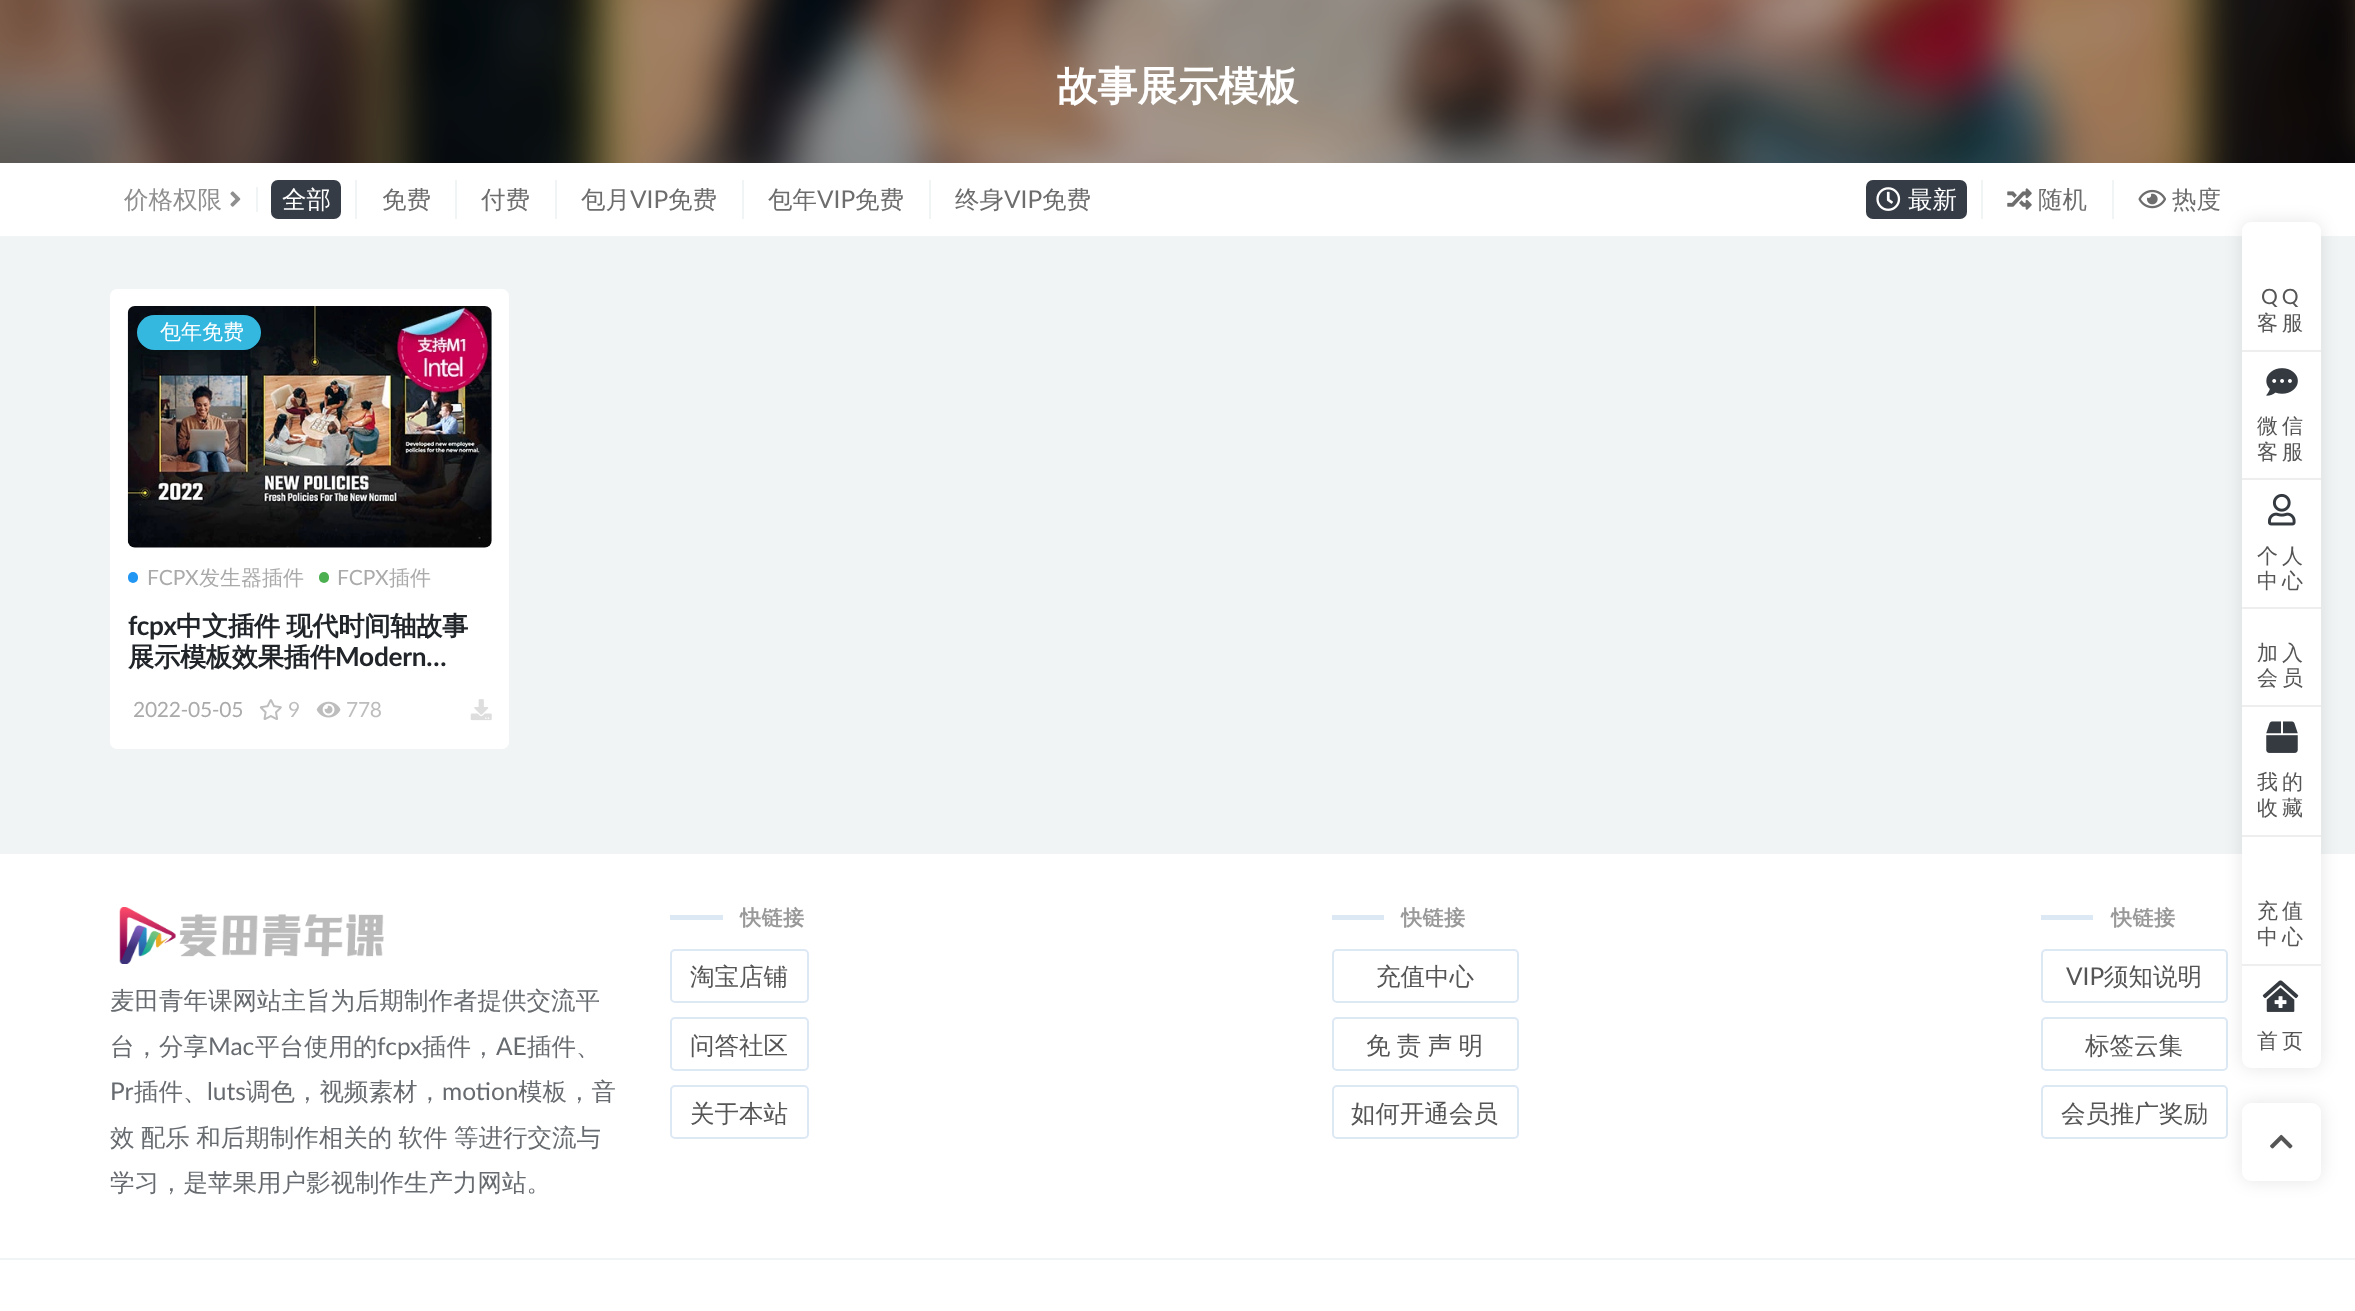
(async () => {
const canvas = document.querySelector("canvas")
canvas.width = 2355
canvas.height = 1311
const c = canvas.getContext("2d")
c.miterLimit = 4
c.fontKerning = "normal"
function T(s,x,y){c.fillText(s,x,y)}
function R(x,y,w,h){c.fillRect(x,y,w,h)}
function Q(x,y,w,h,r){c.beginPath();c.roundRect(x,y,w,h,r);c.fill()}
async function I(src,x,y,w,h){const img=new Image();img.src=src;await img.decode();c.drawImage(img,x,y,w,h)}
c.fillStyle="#f0f4f5"
R(0,0,2355,1311)
await I("1.png",0,0,2355,163)
c.save()
c.beginPath()
c.rect(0,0,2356,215)
c.clip()
c.fillStyle="#0000004d"
c.filter="blur(17.5px)"
c.beginPath()
c.rect(-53,-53,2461,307)
c.fill()
c.filter="none"
c.restore()
c.font="bold 40.25px WenQuanYi Zen Hei"
c.fillStyle="#fff"
T("故事展示模板",1057,100)
R(0,163,2355,73)
c.fillStyle="#f0f4f5"
R(256,187,2,25)
c.font="500 24.5px WenQuanYi Zen Hei"
c.fillStyle="#8f8f8f"
T("价格权限",124,208)
await I("2.png",230,191,11,16)
c.fillStyle="#f0f4f5"
R(355,180,2,39)
c.fillStyle="#353c46"
Q(271,180,70,39,7)
c.fillStyle="#fff"
T("全部",282,208)
c.fillStyle="#f0f4f5"
R(455,180,2,39)
c.fillStyle="#6d6d6d"
T("免费",382,208)
c.fillStyle="#f0f4f5"
R(555,180,2,39)
c.fillStyle="#6d6d6d"
T("付费",481,208)
c.fillStyle="#f0f4f5"
R(742,180,2,39)
c.fillStyle="#6d6d6d"
T("包月",581,208)
c.font="24.5px Lato"
T("VIP",630,208)
c.font="500 24.5px WenQuanYi Zen Hei"
T("免费",668,208)
c.fillStyle="#f0f4f5"
R(929,180,2,39)
c.fillStyle="#6d6d6d"
T("包年",768,208)
c.font="24.5px Lato"
T("VIP",817,208)
c.font="500 24.5px WenQuanYi Zen Hei"
T("免费",855,208)
T("终身",955,208)
c.font="24.5px Lato"
T("VIP",1004,208)
c.font="500 24.5px WenQuanYi Zen Hei"
T("免费",1042,208)
c.fillStyle="#f0f4f5"
R(1981,180,2,39)
c.fillStyle="#353c46"
Q(1866,180,101,39,7)
await I("3.png",1876,187,25,24)
c.fillStyle="#fff"
T("最新",1908,208)
c.fillStyle="#f0f4f5"
R(2112,180,2,39)
await I("4.png",2007,188,25,22)
c.fillStyle="#6d6d6d"
T("随机",2038,208)
await I("5.png",2138,189,28,20)
T("热度",2172,208)
c.fillStyle="#fff"
Q(110,289,399,460,7)
await I("6.png",127,306,365,242)
c.fillStyle="#35b8e0"
Q(137,315,124,35,17.5)
c.font="500 21px WenQuanYi Zen Hei"
c.fillStyle="#fff"
T("包年免费",160,339)
c.fillStyle="#2196f3"
Q(128,572,10,11,5)
c.font="21px Lato"
c.fillStyle="#aaa"
T("FCPX",147,585)
c.font="500 21px WenQuanYi Zen Hei"
T("发生器插件",199,585)
c.fillStyle="#4caf50"
Q(319,572,10,11,5)
c.font="21px Lato"
c.fillStyle="#aaa"
T("FCPX",337,585)
c.font="500 21px WenQuanYi Zen Hei"
T("插件",389,585)
c.letterSpacing="-0.3px"
c.font="bold 26.25px Lato"
c.fillStyle="#212529"
T("fcpx",128,635)
c.wordSpacing="-1px"
c.font="bold 26.25px WenQuanYi Zen Hei"
T("中文插件 现代时间轴故事",176,635)
c.wordSpacing="0px"
T("展示模板效果插件",128,666)
c.font="bold 26.25px Lato"
T("Modern…",335,666)
c.font="21px Lato"
c.fillStyle="#aaa"
T("2022-05-05",133,717)
await I("7.png",259,699,23,21)
c.fillStyle="#bdbdbd"
T("9",288,717)
await I("8.png",316,701,25,17)
T("778",346,717)
await I("9.png",470,699,22,22)
c.fillStyle="#fff"
R(0,854,2355,457)
await I("10.png",119,907,265,57)
c.letterSpacing="0px"
c.font="500 24.5px WenQuanYi Zen Hei"
c.fillStyle="#676b6f"
T("麦田青年课网站主旨为后期制作者提供交流平",110,1009)
T("台，分享",110,1055)
c.font="24.5px Lato"
T("Mac",208,1055)
c.font="500 24.5px WenQuanYi Zen Hei"
T("平台使用的",255,1055)
c.font="24.5px Lato"
T("fcpx",377,1055)
c.font="500 24.5px WenQuanYi Zen Hei"
T("插件，",422,1055)
c.font="24.5px Lato"
T("AE",496,1055)
c.font="500 24.5px WenQuanYi Zen Hei"
T("插件、",527,1055)
c.font="24.5px Lato"
T("Pr",110,1100)
c.font="500 24.5px WenQuanYi Zen Hei"
T("插件、",134,1100)
c.font="24.5px Lato"
T("luts",207,1100)
c.font="500 24.5px WenQuanYi Zen Hei"
T("调色，视频素材，",246,1100)
c.font="24.5px Lato"
T("motion",442,1100)
c.font="500 24.5px WenQuanYi Zen Hei"
T("模板，音",518,1100)
c.wordSpacing="-1px"
T("效 配乐 和后期制作相关的 软件 等进行交流与",110,1146)
c.wordSpacing="0px"
T("学习，是苹果用户影视制作生产力网站。",110,1191)
c.fillStyle="#dde8f5"
R(670,915,53,5)
c.letterSpacing="0.5px"
c.font="bold 21px WenQuanYi Zen Hei"
c.fillStyle="#999"
T("快链接",740,925)
c.beginPath()
c.roundRect(671,950,137,52,4)
c.strokeStyle="#dde8f5"
c.lineWidth=2
c.stroke()
c.letterSpacing="0px"
c.font="500 24.5px WenQuanYi Zen Hei"
c.fillStyle="#555"
T("淘宝店铺",690,985)
c.beginPath()
c.roundRect(671,1018,137,52,4)
c.stroke()
T("问答社区",690,1054)
c.beginPath()
c.roundRect(671,1086,137,52,4)
c.stroke()
T("关于本站",690,1122)
c.fillStyle="#dde8f5"
R(1332,915,52,5)
c.letterSpacing="0.5px"
c.font="bold 21px WenQuanYi Zen Hei"
c.fillStyle="#999"
T("快链接",1401,925)
c.beginPath()
c.roundRect(1333,950,185,52,4)
c.stroke()
c.letterSpacing="0px"
c.font="500 24.5px WenQuanYi Zen Hei"
c.fillStyle="#555"
T("充值中心",1376,985)
c.beginPath()
c.roundRect(1333,1018,185,52,4)
c.stroke()
c.wordSpacing="-1px"
T("免 责 声 明",1366,1054)
c.beginPath()
c.roundRect(1333,1086,185,52,4)
c.stroke()
c.wordSpacing="0px"
T("如何开通会员",1351,1122)
c.fillStyle="#dde8f5"
R(2041,915,52,5)
c.letterSpacing="0.5px"
c.font="bold 21px WenQuanYi Zen Hei"
c.fillStyle="#999"
T("快链接",2111,925)
c.beginPath()
c.roundRect(2042,950,185,52,4)
c.stroke()
c.letterSpacing="0px"
c.font="24.5px Lato"
c.fillStyle="#555"
T("VIP",2066,985)
c.font="500 24.5px WenQuanYi Zen Hei"
T("须知说明",2104,985)
c.beginPath()
c.roundRect(2042,1018,185,52,4)
c.stroke()
T("标签云集",2085,1054)
c.beginPath()
c.roundRect(2042,1086,185,52,4)
c.stroke()
T("会员推广奖励",2061,1122)
c.fillStyle="#f0f4f5"
R(0,1258,2355,2)
c.fillStyle="#0000001a"
c.filter="blur(9px)"
c.beginPath()
c.roundRect(2242,222,79,846,9)
c.fill()
c.filter="none"
c.fillStyle="#fff"
c.beginPath()
c.roundRect(2242,222,79,128,[9,9,0,0])
c.fill()
c.letterSpacing="4px"
c.font="21px Lato"
c.fillStyle="#555"
T("QQ",2261,304)
c.font="500 21px WenQuanYi Zen Hei"
T("客服",2257,330)
c.fillStyle="#fff"
R(2242,352,79,126)
c.fillStyle="#eee"
R(2242,350,79,2)
await I("11.png",2266,368,32,28)
c.fillStyle="#555"
T("微信",2257,433)
T("客服",2257,459)
c.fillStyle="#fff"
R(2242,480,79,127)
c.fillStyle="#eee"
R(2242,478,79,2)
await I("12.png",2268,493,28,33)
c.fillStyle="#555"
T("个人",2257,563)
T("中心",2257,588)
c.fillStyle="#fff"
R(2242,609,79,96)
c.fillStyle="#eee"
R(2242,607,79,2)
c.fillStyle="#555"
T("加入",2257,660)
T("会员",2257,685)
c.fillStyle="#fff"
R(2242,707,79,128)
c.fillStyle="#eee"
R(2242,705,79,2)
await I("13.png",2266,721,32,32)
c.fillStyle="#555"
T("我的",2257,789)
T("收藏",2257,815)
c.fillStyle="#fff"
R(2242,837,79,127)
c.fillStyle="#eee"
R(2242,835,79,2)
c.fillStyle="#555"
T("充值",2257,918)
T("中心",2257,944)
c.fillStyle="#fff"
c.beginPath()
c.roundRect(2242,964,79,104,[0,0,9,9])
c.fill()
c.fillStyle="#eee"
R(2242,964,79,2)
await I("14.png",2262,980,37,32)
c.fillStyle="#555"
T("首页",2257,1048)
c.fillStyle="#0000001a"
c.filter="blur(9px)"
c.beginPath()
c.roundRect(2242,1103,79,78,9)
c.fill()
c.filter="none"
c.fillStyle="#fff"
Q(2242,1103,79,78,9)
await I("15.png",2270,1134,23,15)
})()
